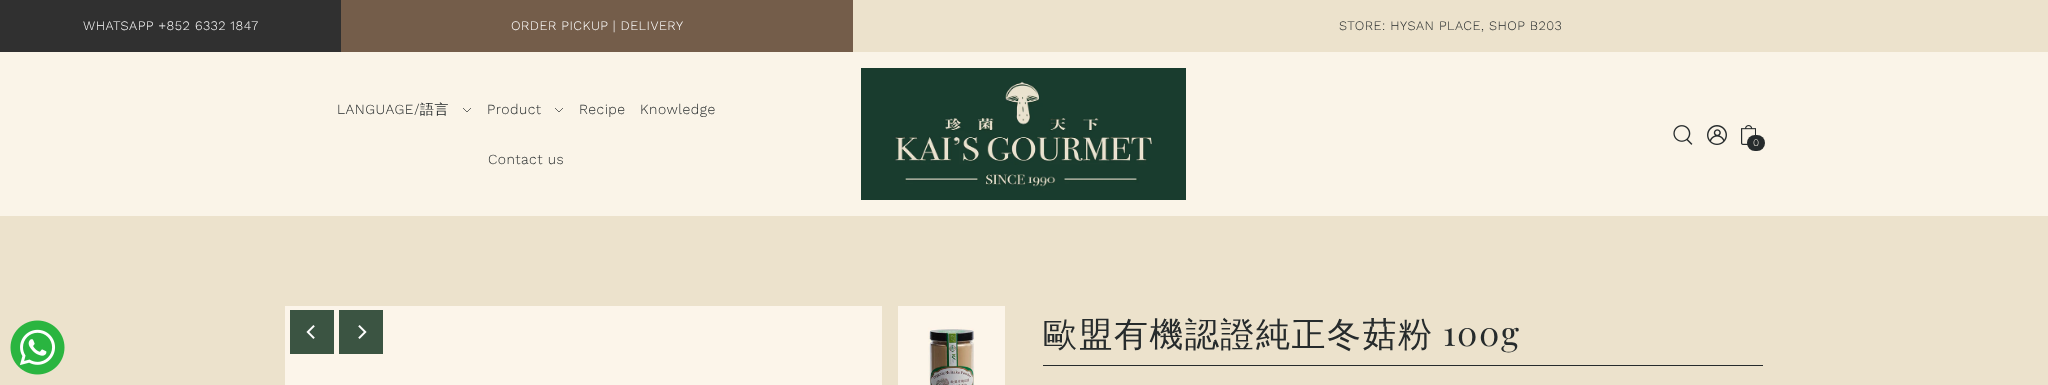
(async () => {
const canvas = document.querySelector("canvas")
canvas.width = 2048
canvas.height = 385
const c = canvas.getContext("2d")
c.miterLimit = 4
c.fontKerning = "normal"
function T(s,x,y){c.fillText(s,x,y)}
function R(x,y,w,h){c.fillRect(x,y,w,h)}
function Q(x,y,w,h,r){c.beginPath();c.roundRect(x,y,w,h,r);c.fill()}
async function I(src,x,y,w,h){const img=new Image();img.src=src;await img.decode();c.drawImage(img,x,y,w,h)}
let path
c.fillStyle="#faf4e8"
R(0,0,2048,385)
c.fillStyle="#ece2cc"
R(0,216,2048,169)
await I("1.png",10,320,55,55)
R(853,0,1195,52)
c.fillStyle="#303030"
R(0,0,341,52)
c.letterSpacing="0.5px"
c.font="300 13px Work Sans"
c.fillStyle="#fff"
T("WHATSAPP +852 6332 1847",83,30)
c.fillStyle="#745d4a"
R(341,0,512,52)
c.fillStyle="#fff"
T("ORDER PICKUP | DELIVERY",511,30)
c.fillStyle="#262b2c"
T("STORE: HYSAN PLACE, SHOP B203",1339,30)
c.font="300 14px Work Sans"
T("LANGUAGE/",337,114)
c.font="500 14px WenQuanYi Zen Hei"
T("語言",420,114)
c.save()
c.beginPath()
c.rect(461,108,12,4)
c.clip()
path = new Path2D("M463 108l4 4l4-4")
c.strokeStyle="#262b2c"
c.lineWidth=0.7
c.lineCap="round"
c.lineJoin="round"
c.stroke(path)
c.restore()
c.font="300 14px Work Sans"
T("Product",487,114)
c.save()
c.beginPath()
c.rect(553,108,12,4)
c.clip()
path = new Path2D("M555 108l4 4l4-4")
c.strokeStyle="#262b2c"
c.lineWidth=0.7
c.lineCap="round"
c.lineJoin="round"
c.stroke(path)
c.restore()
T("Recipe",579,114)
T("Knowledge",640,114)
T("Contact us",488,164)
await I("2.png",861,68,325,132)
await I("3.png",1673,125,20,20)
await I("4.png",1707,125,20,20)
await I("5.png",1741,125,15,20)
Q(1747,135,18,16,8)
c.font="300 10px Work Sans"
c.fillStyle="#faf4e8"
T("0",1753,146)
c.fillStyle="#fcf5ea"
R(285,306,597,79)
c.fillStyle="#3b5442"
R(290,310,44,44)
await I("6.png",306,325,9,14)
R(339,310,44,44)
await I("7.png",358,325,9,14)
await I("8.png",898,306,107,79)
c.letterSpacing="1.5px"
c.font="500 34px WenQuanYi Zen Hei"
c.fillStyle="#262b2c"
T("歐盟有機認證純正冬菇粉",1043,346)
c.font="34px Playfair Display"
T("100g",1443,346)
R(1043,365,720,1)
})()
